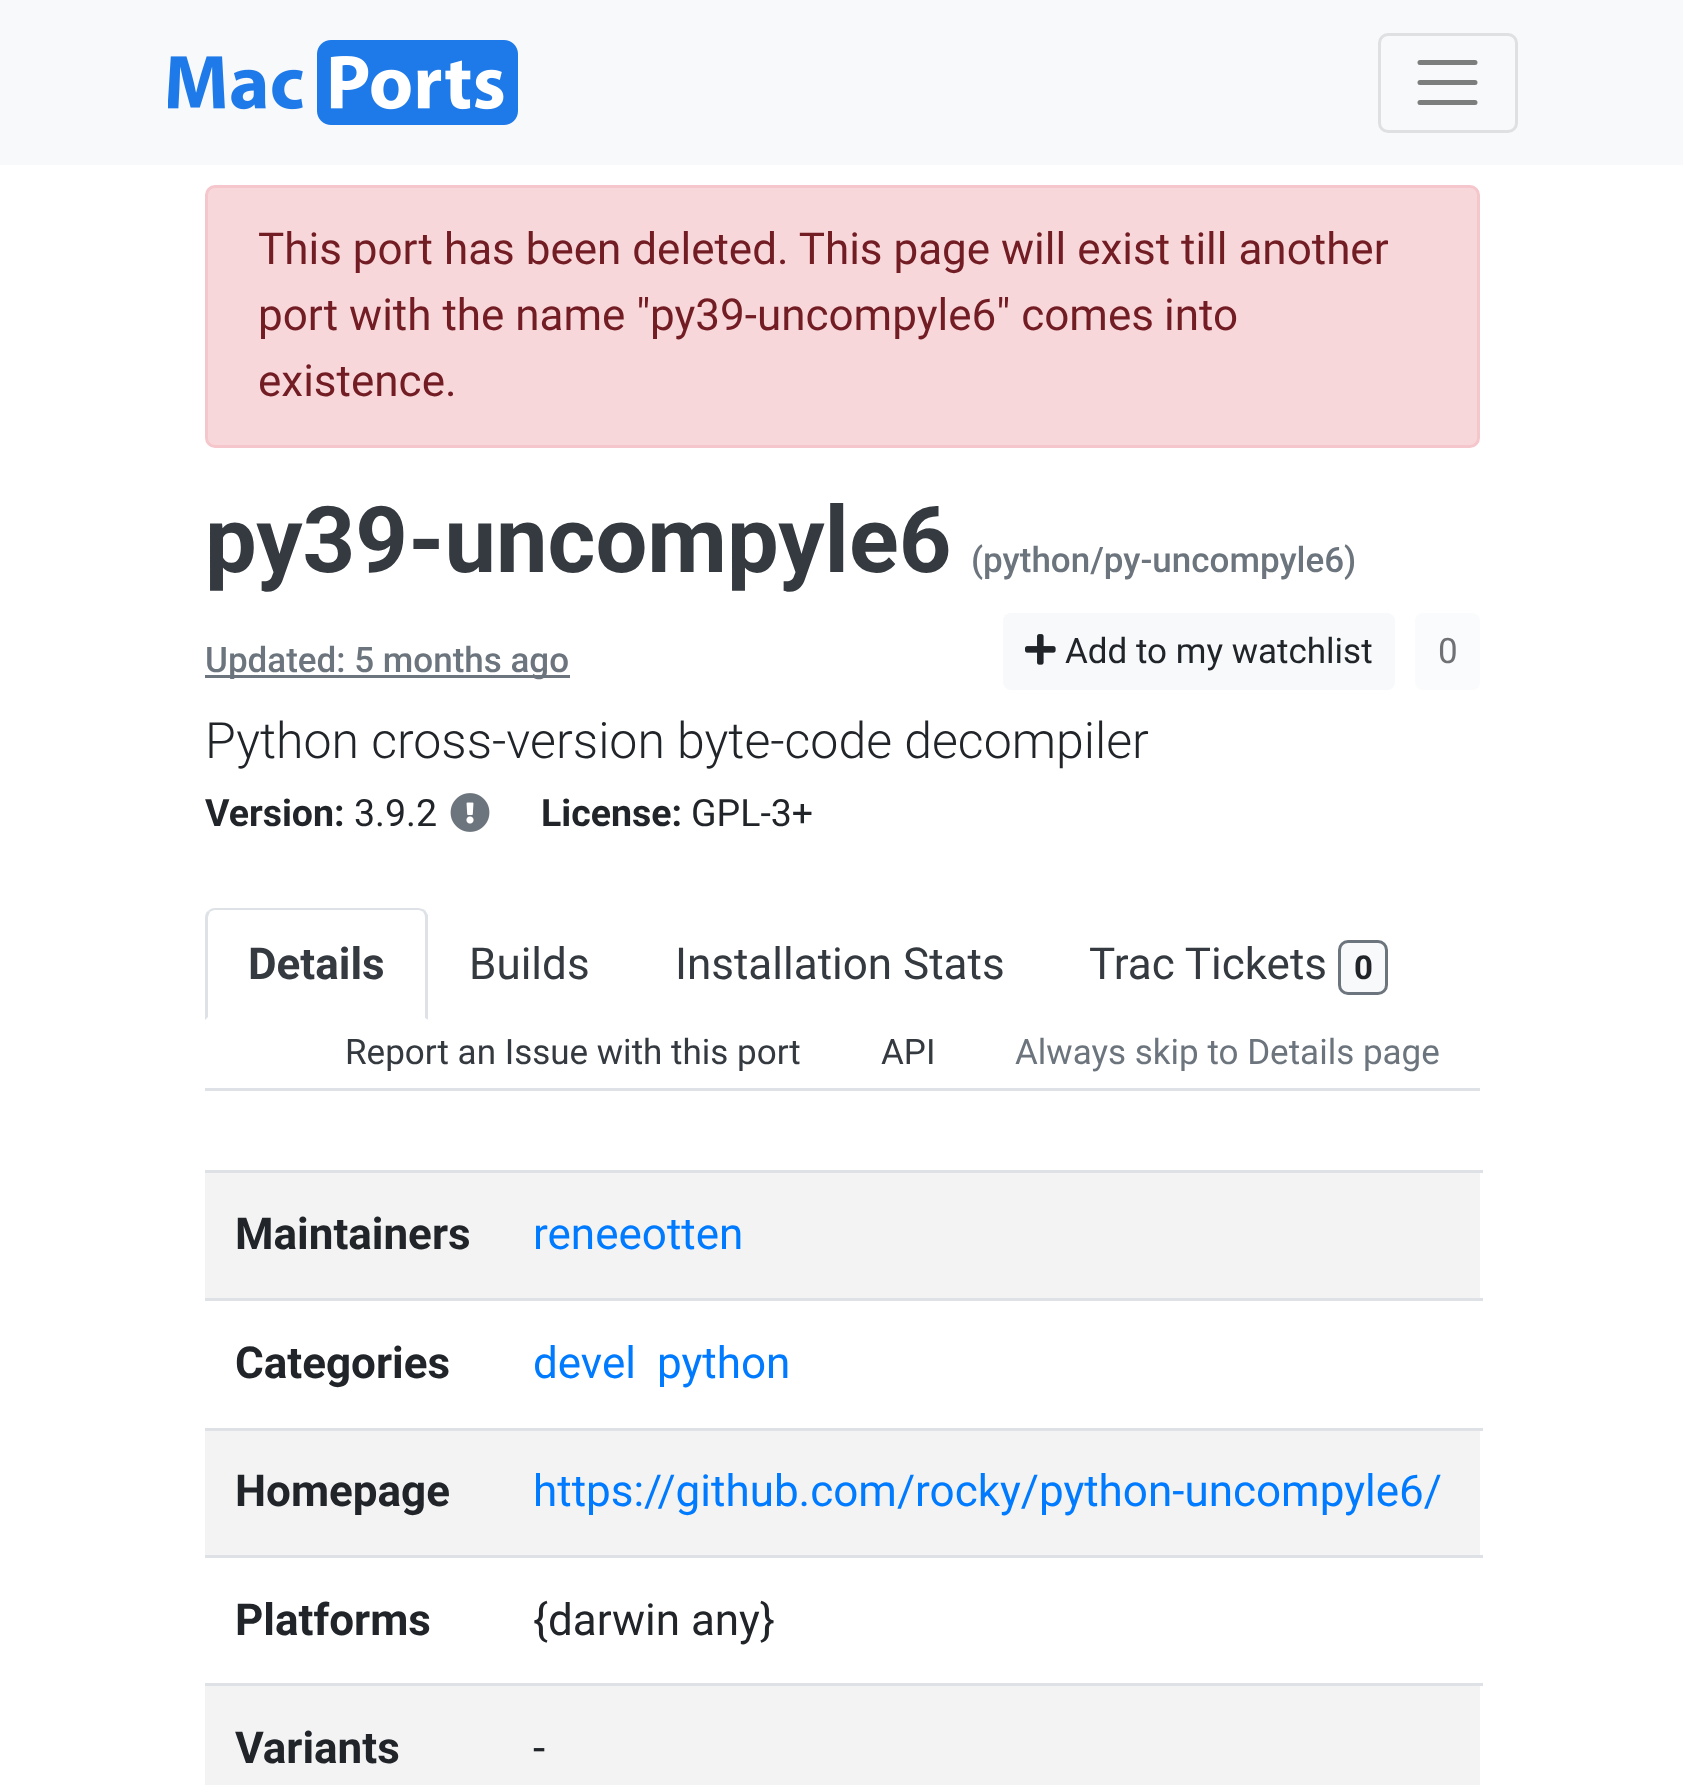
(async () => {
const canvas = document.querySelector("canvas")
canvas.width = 1683
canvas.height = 1785
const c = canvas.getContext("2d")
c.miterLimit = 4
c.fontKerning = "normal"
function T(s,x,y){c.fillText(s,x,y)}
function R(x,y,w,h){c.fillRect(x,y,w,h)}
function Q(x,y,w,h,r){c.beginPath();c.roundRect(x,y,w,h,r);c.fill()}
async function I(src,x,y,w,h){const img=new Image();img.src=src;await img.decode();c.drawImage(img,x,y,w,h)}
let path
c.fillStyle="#fff"
R(0,0,1683,1785)
c.fillStyle="#f8f9fa"
R(0,0,1683,165)
await I("1.png",168,40,350,85)
c.beginPath()
c.roundRect(1379.5,34.5,137,97,8.5)
c.strokeStyle="#dfe0e1"
c.lineWidth=3
c.stroke()
path = new Path2D("M1420 62.5h55m-55 20h55m-55 20h55")
c.strokeStyle="#7c7d7d"
c.lineWidth=5
c.lineCap="round"
c.stroke(path)
c.fillStyle="#f8d7da"
c.beginPath()
c.roundRect(206.5,186.5,1272,260,8.5)
c.fill()
c.strokeStyle="#f5c6cb"
c.lineWidth=3
c.stroke()
c.font="44px Roboto"
c.fillStyle="#721c24"
T("This port has been deleted. This page will exist till another",258,264)
T("port with the name \"py39-uncompyle6\" comes",258,330)
T("into",1164,330)
T("existence.",258,396)
c.font="bold 92px Roboto"
c.fillStyle="#343a40"
T("py39-uncompyle6",205,572)
c.font="500 35px Roboto"
c.fillStyle="#6c757d"
T("(python/py-uncompyle6)",971,572)
R(205,675,365,3)
T("Updated: 5 months ago",205,672)
c.fillStyle="#f8f9fa"
Q(1003,613,392,77,8)
await I("2.png",1025,634,31,31)
c.font="35px Roboto"
c.fillStyle="#212529"
T("Add to my watchlist",1065,663)
c.fillStyle="#fafbfc"
Q(1415,613,65,77,8)
c.fillStyle="#6f7174"
T("0",1438,663)
c.font="300 50px Roboto"
c.fillStyle="#212529"
T("Python cross-version byte-code decompiler",205,758)
c.font="bold 37.5px Roboto"
T("Version:",205,826)
c.font="37.5px Roboto"
T("3.9.2",354,826)
await I("3.png",450,793,40,39)
c.font="bold 37.5px Roboto"
T("License:",541,826)
c.font="37.5px Roboto"
T("GPL-3+",691,826)
c.fillStyle="#dee2e6"
R(205,1088,1275,3)
path = new Path2D("M215 908c-3 0-5 1-7 3l2 1c1-1 3-2 5-2h203c2 0 4 1 5 2l2-2c-2-1-5-2-7-2z")
c.fill(path)
path = new Path2D("M425 910c1 2 2 3 3 5v105l-3-2v-100c0-3-1-5-2-6z")
c.fill(path)
c.fillStyle="#fff"
path = new Path2D("M428 1020l-3-2h-217v-1l-3 3z")
c.fill(path)
c.fillStyle="#dee2e6"
path = new Path2D("M205 1020l3-3v-99c0-2 1-4 2-6l-2-1c-2 1-3 4-3 7z")
c.fill(path)
c.font="bold 44px Roboto"
c.fillStyle="#343a40"
T("Details",248,979)
c.font="44px Roboto"
T("Builds",469,979)
T("Installation Stats",675,979)
T("Trac Tickets",1089,979)
c.fillStyle="#f8f9fa"
c.beginPath()
c.roundRect(1339.5,941.5,47,52,8.5)
c.fill()
c.strokeStyle="#6c757d"
c.stroke()
c.font="bold 33px Roboto"
c.fillStyle="#212529"
T("0",1354,979)
c.font="35px Roboto"
c.fillStyle="#343a40"
T("Report an Issue with this port",345,1064)
T("API",881,1064)
c.fillStyle="#6c757d"
T("Always skip to Details page",1015,1064)
c.fillStyle="#f3f3f3"
R(205,1173,1275,125)
c.font="bold 44px Roboto"
c.fillStyle="#212529"
T("Maintainers",235,1249)
c.fillStyle="#dee2e6"
R(205,1170,1278,3)
c.font="44px Roboto"
c.fillStyle="#007bff"
T("reneeotten",533,1249)
c.font="bold 44px Roboto"
c.fillStyle="#212529"
T("Categories",235,1378)
c.fillStyle="#dee2e6"
R(205,1298,1278,3)
c.font="44px Roboto"
c.fillStyle="#007bff"
T("devel",533,1378)
T("python",657,1378)
c.fillStyle="#f3f3f3"
R(205,1431,1275,124)
c.font="bold 44px Roboto"
c.fillStyle="#212529"
T("Homepage",235,1506)
c.fillStyle="#dee2e6"
R(205,1428,1278,3)
c.font="44px Roboto"
c.fillStyle="#007bff"
T("https://github.com/rocky/python-uncompyle6/",533,1506)
c.font="bold 44px Roboto"
c.fillStyle="#212529"
T("Platforms",235,1635)
c.fillStyle="#dee2e6"
R(205,1555,1278,3)
c.font="44px Roboto"
c.fillStyle="#212529"
T("{darwin any}",533,1635)
c.fillStyle="#f3f3f3"
R(205,1686,1275,99)
c.font="bold 44px Roboto"
c.fillStyle="#212529"
T("Variants",235,1763)
c.fillStyle="#dee2e6"
R(205,1683,1278,3)
c.font="44px Roboto"
c.fillStyle="#212529"
T("-",533,1763)
})()
